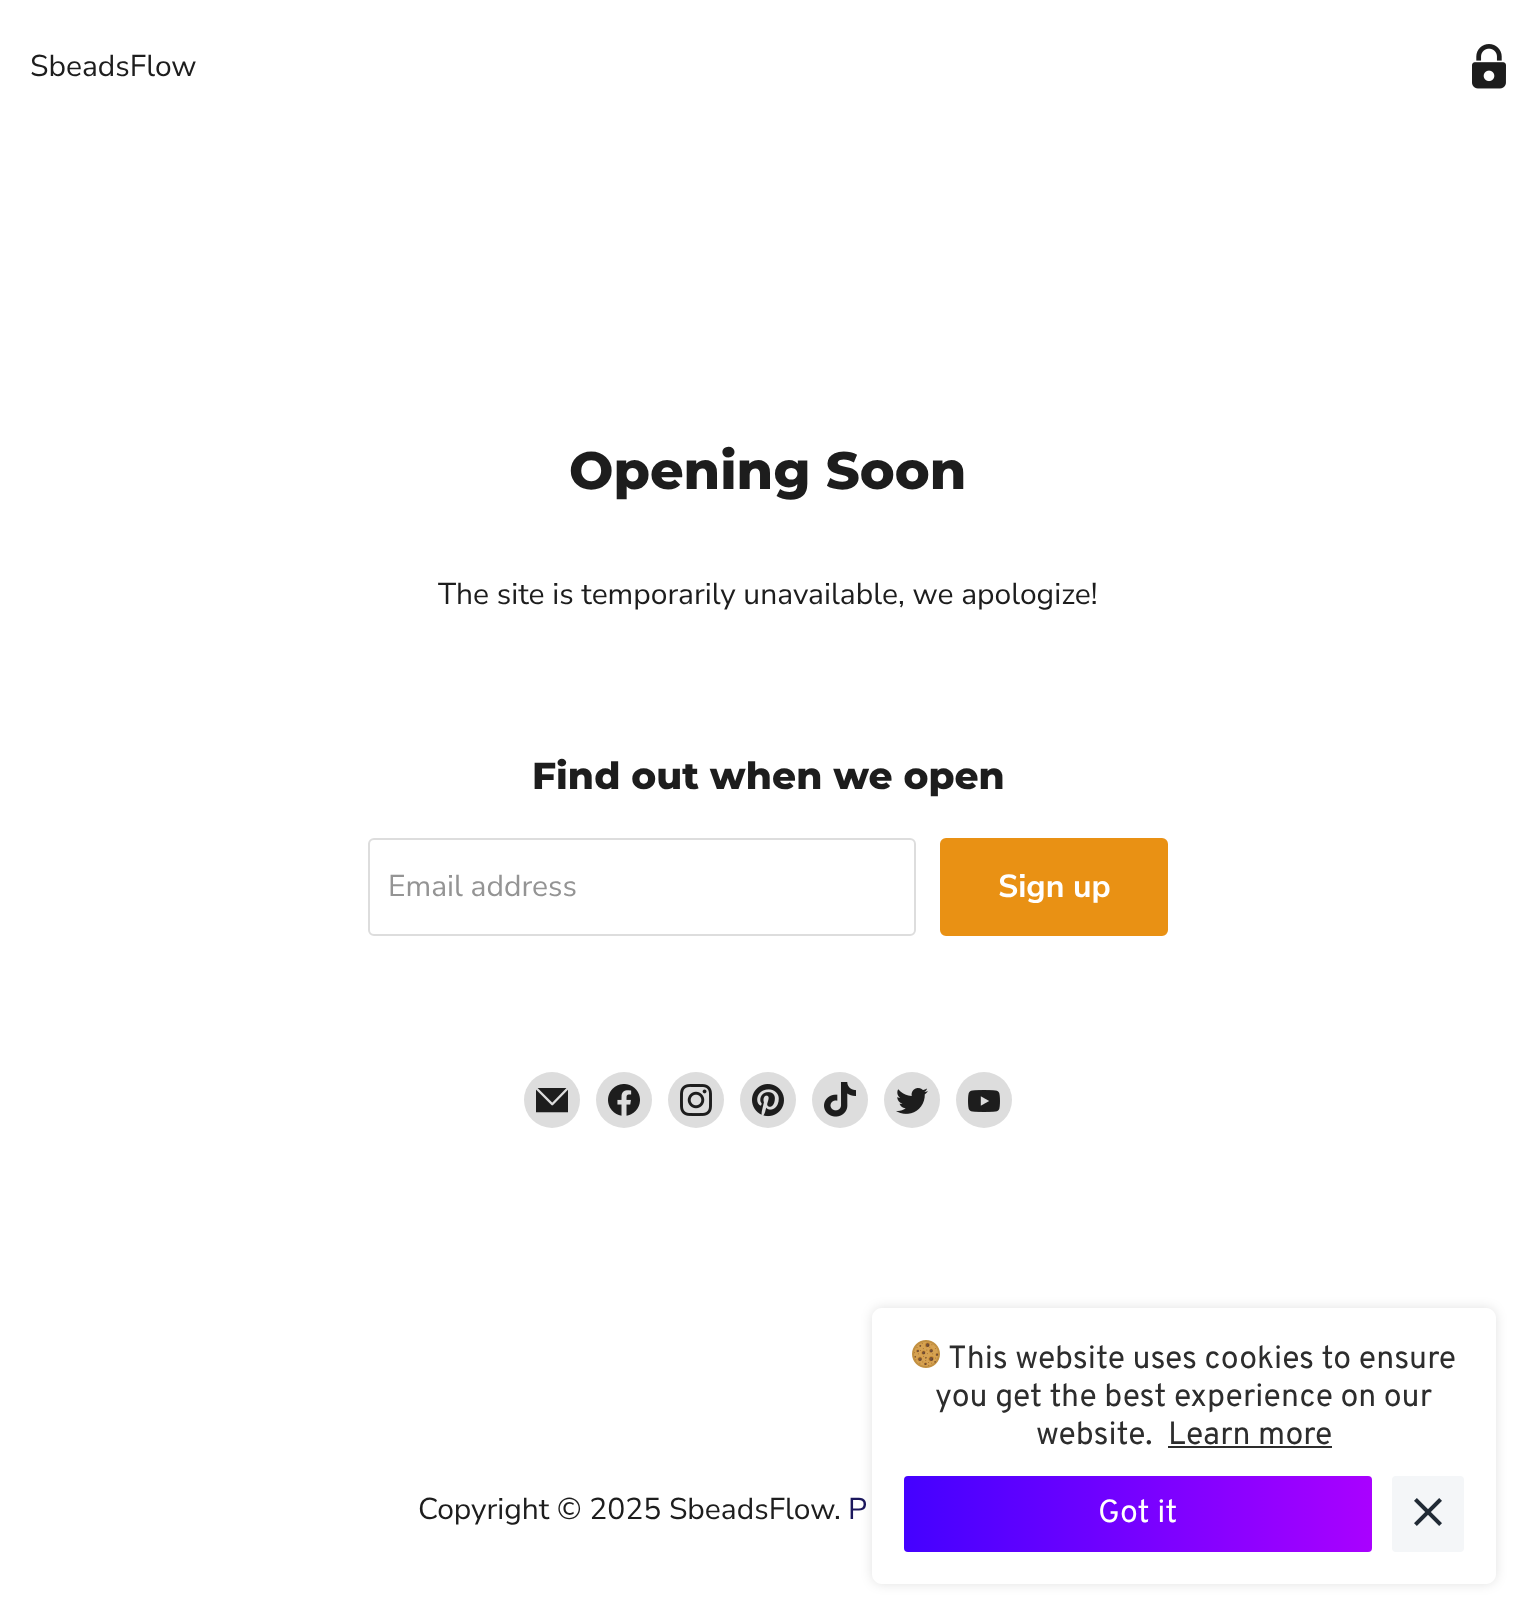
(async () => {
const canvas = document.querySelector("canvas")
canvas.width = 1535
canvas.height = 1623
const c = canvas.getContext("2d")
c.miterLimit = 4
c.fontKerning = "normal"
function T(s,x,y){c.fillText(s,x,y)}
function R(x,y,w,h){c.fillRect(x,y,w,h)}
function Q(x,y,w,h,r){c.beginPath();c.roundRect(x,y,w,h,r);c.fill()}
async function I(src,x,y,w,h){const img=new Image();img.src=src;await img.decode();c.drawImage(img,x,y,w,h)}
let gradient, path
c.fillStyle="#fff"
R(0,0,1535,1623)
c.font="30px Nunito Sans"
c.fillStyle="#1d1d1d"
T("SbeadsFlow",30,76)
await I("1.png",1472,44,34,45)
c.font="800 52.5px Montserrat"
T("Opening Soon",569,489)
c.font="30px Nunito Sans"
T("The site is temporarily unavailable, we apologize!",438,604)
c.font="800 37.5px Montserrat"
T("Find out when we open",532,789)
c.beginPath()
c.roundRect(369,839,546,96,5)
c.strokeStyle="#ddd"
c.lineWidth=2
c.stroke()
c.font="30px Nunito Sans"
c.fillStyle="#949494"
T("Email address",388,896)
c.fillStyle="#e99114"
c.beginPath()
c.roundRect(941,839,226,96,5)
c.fill()
c.strokeStyle="#e99114"
c.stroke()
c.font="bold 32px Nunito Sans"
c.fillStyle="#fff"
T("Sign up",998,897)
c.fillStyle="#ddd"
c.beginPath()
c.arc(552,1100,28,0,7)
c.fill()
await I("2.png",536,1088,32,25)
c.beginPath()
c.arc(624,1100,28,0,7)
c.fill()
await I("3.png",608,1084,32,32)
c.beginPath()
c.arc(696,1100,28,0,7)
c.fill()
await I("4.png",680,1084,32,32)
c.beginPath()
c.arc(768,1100,28,0,7)
c.fill()
await I("5.png",752,1084,32,33)
c.beginPath()
c.arc(840,1100,28,0,7)
c.fill()
await I("6.png",824,1082,32,35)
c.beginPath()
c.arc(912,1100,28,0,7)
c.fill()
await I("7.png",896,1088,32,26)
c.beginPath()
c.arc(984,1100,28,0,7)
c.fill()
await I("8.png",968,1090,32,22)
c.font="30px Nunito Sans"
c.fillStyle="#1d1d1d"
T("Copyright © 2025 SbeadsFlow.",418,1519)
c.fillStyle="#1b175d"
T("P",848,1519)
c.save()
path = new Path2D("M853 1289h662v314h-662zm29 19h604c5.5 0 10 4.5 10 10v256c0 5.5-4.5 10-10 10h-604c-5.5 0-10-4.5-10-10v-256c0-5.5 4.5-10 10-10z")
c.clip(path,"evenodd")
c.fillStyle="#0000001f"
c.filter="blur(6px)"
c.beginPath()
c.roundRect(872,1308,624,276,10)
c.fill()
c.filter="none"
c.restore()
await I("9.png",912,1340,28,28)
c.font="32px Overpass"
c.fillStyle="#2d2d2d"
T("This website uses cookies to ensure",948,1368)
T("you get the best experience on our",935,1406)
T("website.",1036,1444)
T("Learn more",1168,1444)
R(1168,1446,164,2)
gradient = c.createLinearGradient(904,1514,1372,1514)
gradient.addColorStop(0,"#4401ff")
gradient.addColorStop(1,"#a901ff")
c.fillStyle = gradient
Q(904,1476,468,76,4)
c.fillStyle="#fff"
T("Got it",1098,1522)
c.fillStyle="#f4f6f8"
Q(1392,1476,72,76,4)
await I("10.png",1414,1498,28,28)
})()
